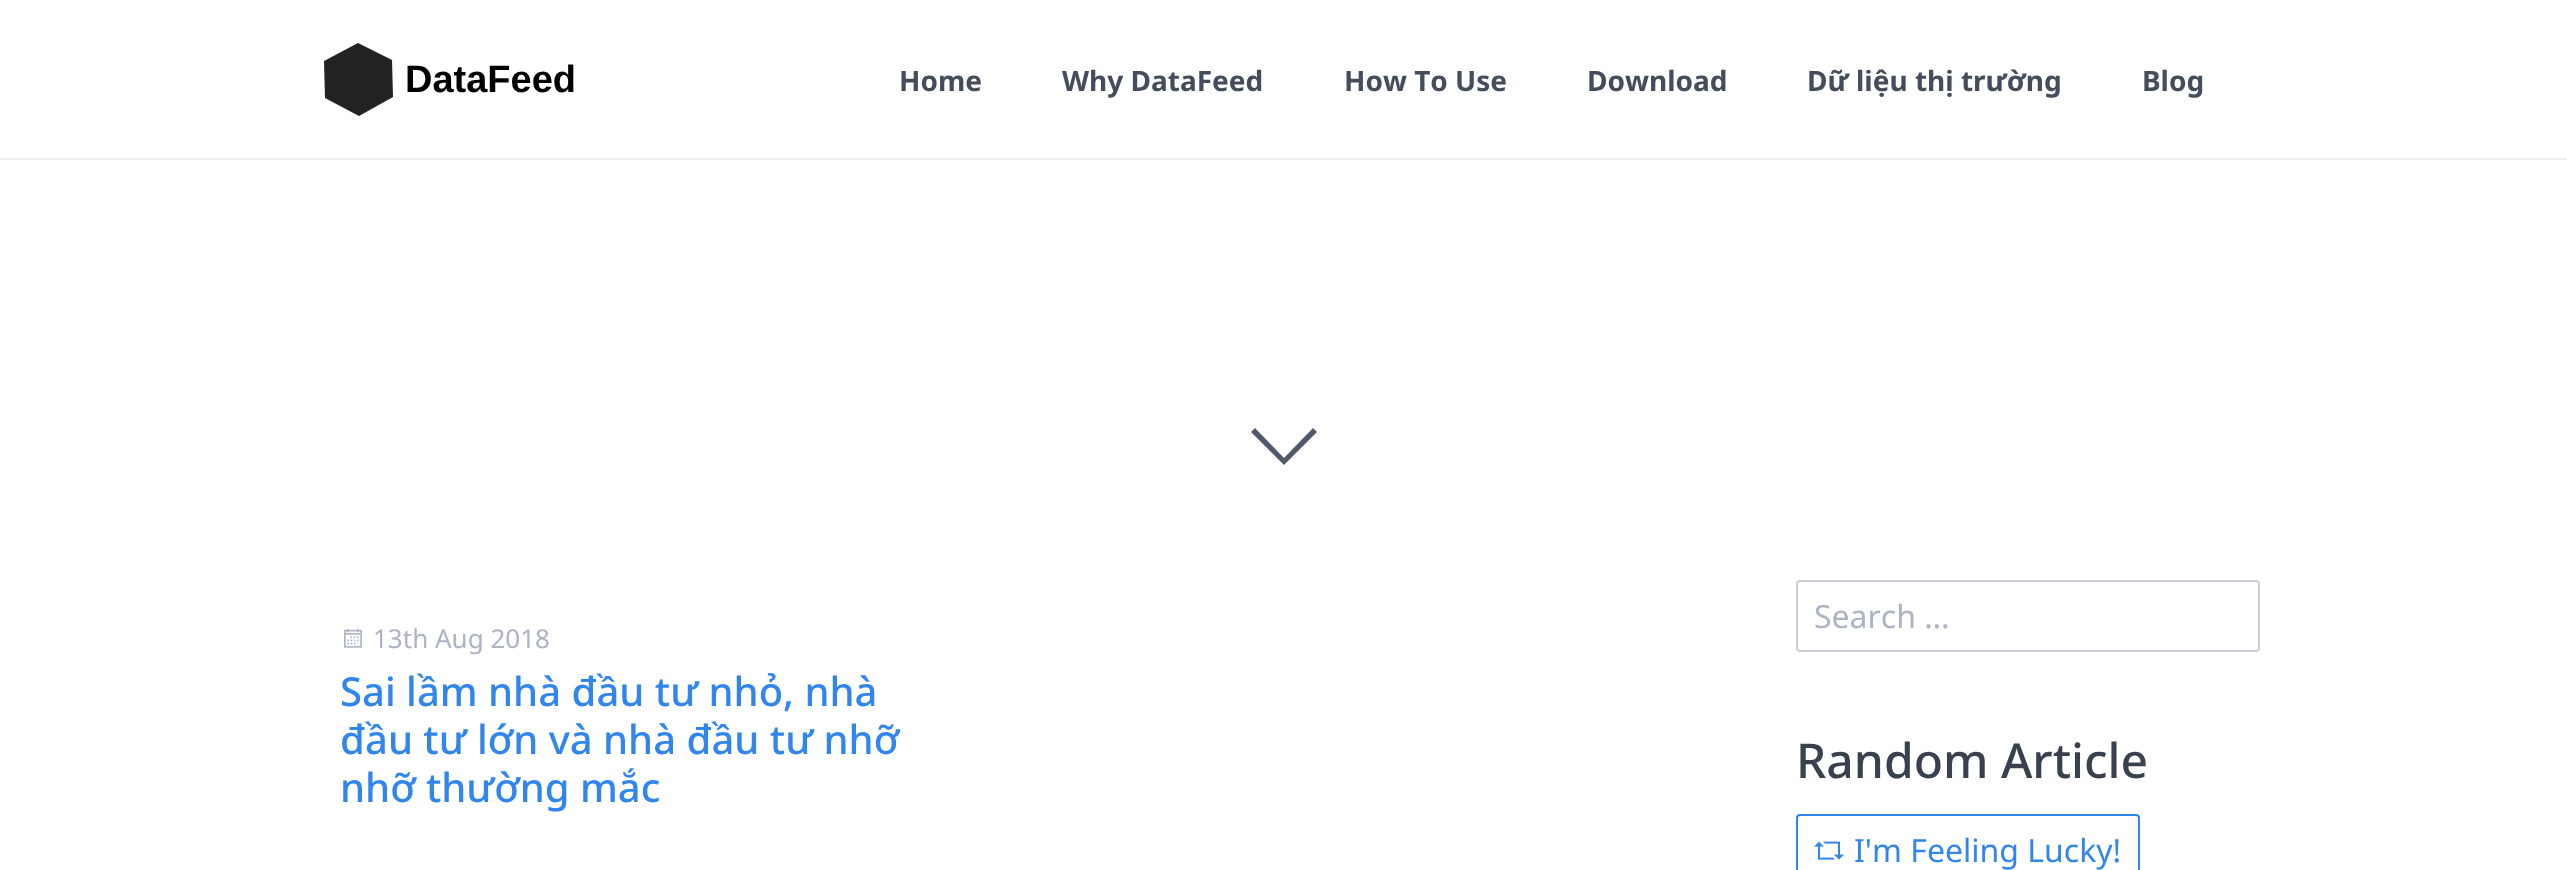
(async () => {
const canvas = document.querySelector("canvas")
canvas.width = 2567
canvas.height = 870
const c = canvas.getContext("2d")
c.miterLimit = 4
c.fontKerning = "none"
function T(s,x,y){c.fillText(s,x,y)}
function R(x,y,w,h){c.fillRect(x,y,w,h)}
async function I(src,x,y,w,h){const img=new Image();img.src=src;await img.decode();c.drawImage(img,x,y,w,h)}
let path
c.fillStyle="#fff"
R(0,0,2567,870)
c.fillStyle="#eef0f3"
R(0,158,2567,2)
c.fillStyle="#222"
path = new Path2D("M393 97l-34 19l-34-18l-1-37l34-18l34 17z")
c.fill(path,"evenodd")
c.font="bold 38px Liberation Sans"
c.fillStyle="#000"
T("DataFeed",405,92)
c.font="bold 28px Noto Sans"
c.fillStyle="#454d5d"
T("Home",899,91)
T("Why DataFeed",1062,91)
T("How To Use",1344,91)
T("Download",1587,91)
T("Dữ liệu thị trường",1807,91)
T("Blog",2142,91)
c.fillStyle="#50596c"
path = new Path2D("M1255 428l29 30l29-30l4 4l-33 33l-33-33z")
c.fill(path)
await I("1.png",344,629,18,19)
c.font="26px Noto Sans"
c.fillStyle="#acb3c2"
T("13th Aug 2018",373,648)
c.font="500 40px Noto Sans"
c.fillStyle="#3085ee"
T("Sai lầm nhà đầu tư nhỏ, nhà",340,706)
T("đầu tư lớn và nhà đầu tư nhỡ",340,754)
T("nhỡ thường mắc",340,802)
c.beginPath()
c.roundRect(1797,581,462,70,3)
c.strokeStyle="#caced7"
c.lineWidth=2
c.stroke()
c.font="32px Noto Sans"
c.fillStyle="#acb3c2"
T("Search …",1814,628)
c.font="500 48px Noto Sans"
c.fillStyle="#3a414e"
T("Random Article",1796,778)
c.beginPath()
c.roundRect(1797,815,342,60,3)
c.strokeStyle="#3085ee"
c.stroke()
await I("2.png",1814,841,30,19)
c.font="32px Noto Sans"
c.fillStyle="#3085ee"
T("I'm Feeling Lucky!",1854,862)
})()
